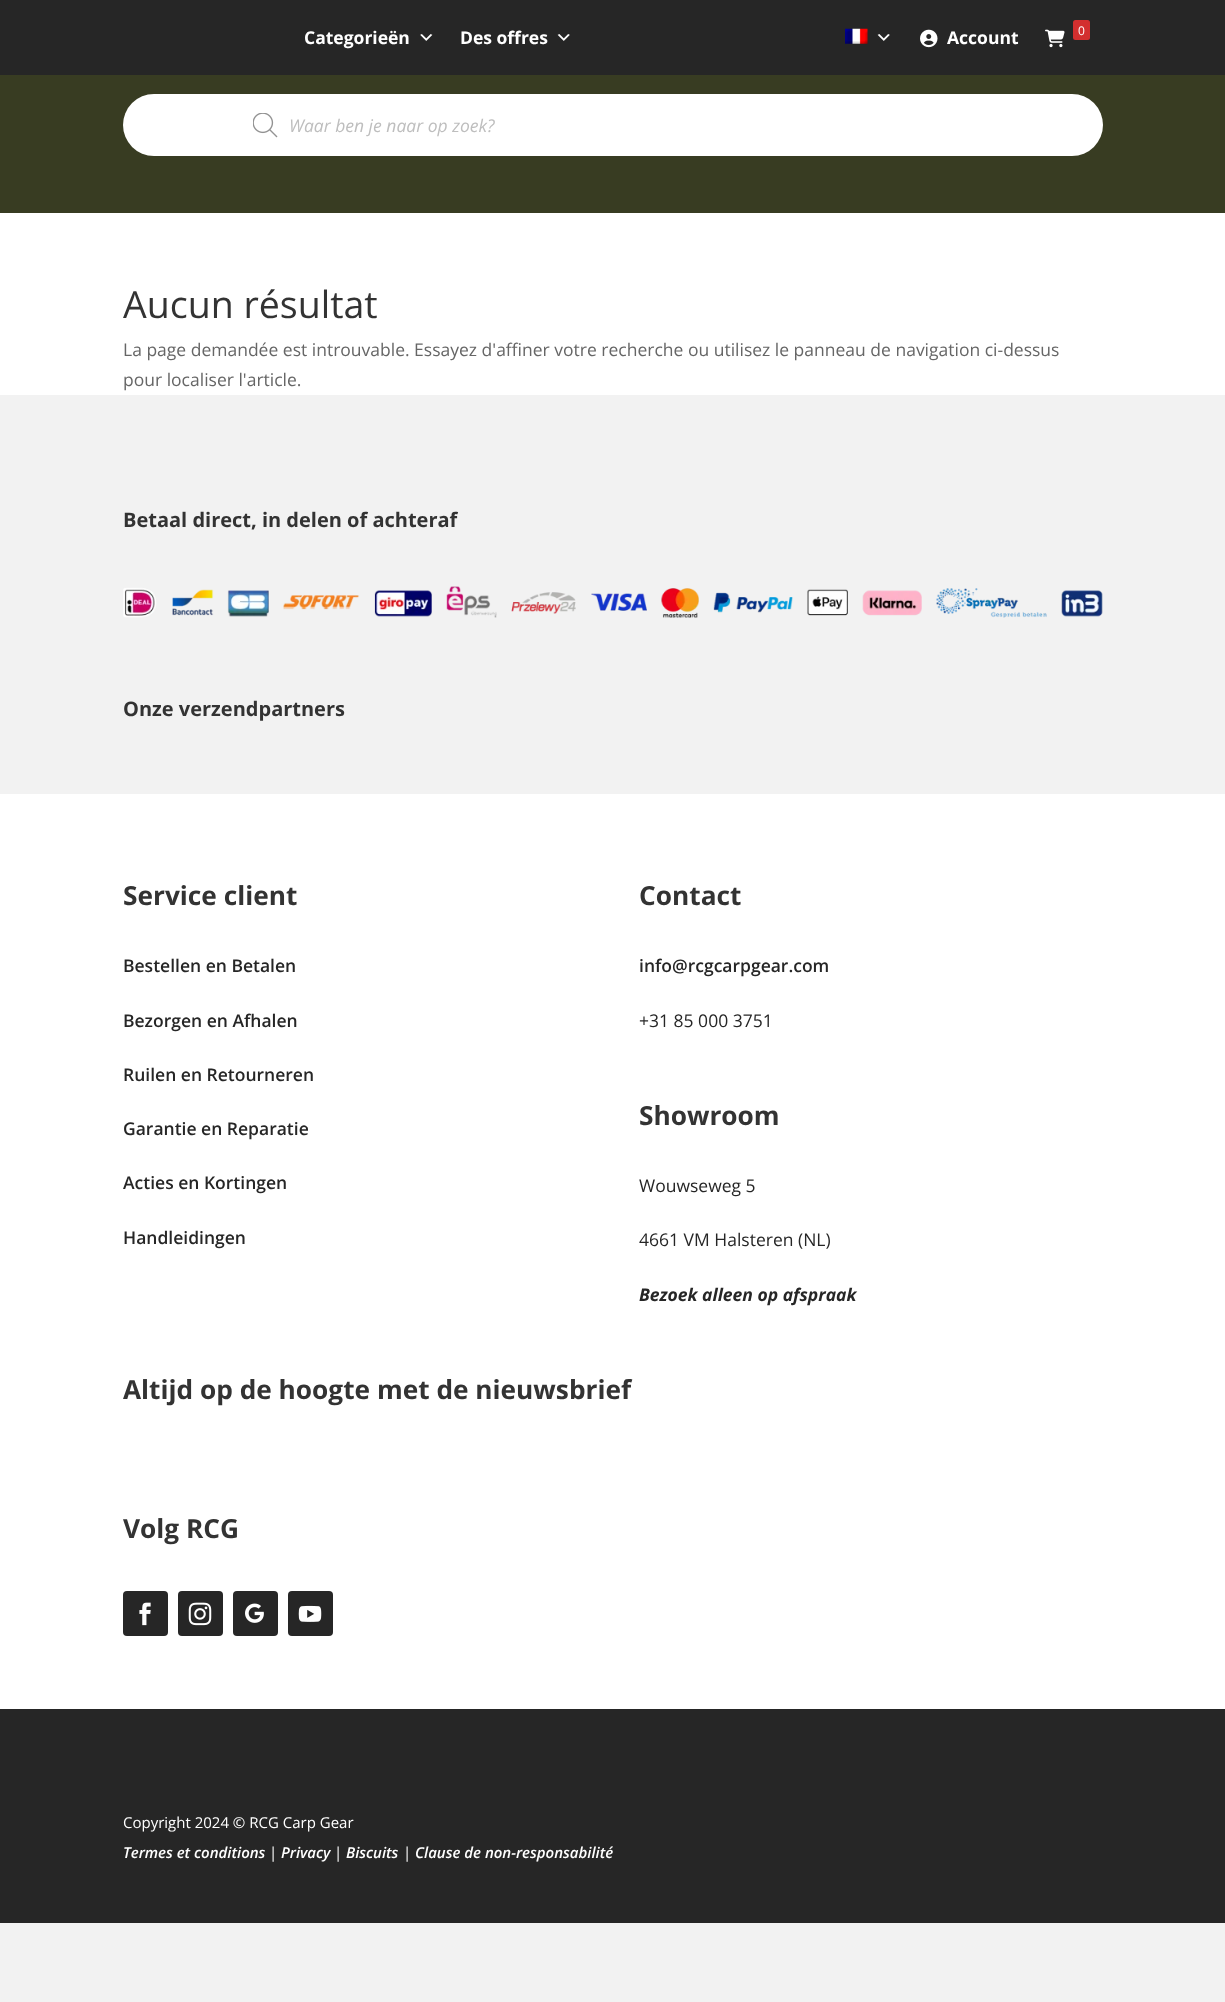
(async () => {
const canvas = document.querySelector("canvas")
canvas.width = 1225
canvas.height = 2002
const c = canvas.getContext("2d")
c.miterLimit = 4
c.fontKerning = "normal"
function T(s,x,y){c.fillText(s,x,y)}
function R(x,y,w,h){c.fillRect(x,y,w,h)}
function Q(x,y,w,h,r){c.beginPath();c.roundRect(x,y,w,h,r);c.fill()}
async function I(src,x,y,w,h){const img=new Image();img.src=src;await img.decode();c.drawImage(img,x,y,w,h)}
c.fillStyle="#f2f2f2"
R(0,0,1225,2002)
c.fillStyle="#262626"
R(0,0,1225,75)
c.font="bold 17.5px Open Sans"
c.fillStyle="#fff"
T("Categorieën",304,44)
await I("1.png",420,34,13,7)
T("Des offres",460,44)
await I("2.png",557,34,13,7)
await I("3.png",845,28,23,16)
await I("2.png",877,34,13,7)
await I("4.png",920,29,18,19)
T("Account",947,44)
await I("5.png",1045,29,20,19)
c.fillStyle="#d32f2f"
Q(1073,20,17,20,2.5)
c.font="12px Open Sans"
c.fillStyle="#fff"
T("0",1078,35)
c.fillStyle="#383c22"
R(0,75,1225,138)
c.fillStyle="#fff"
Q(123,94,980,62,31)
await I("6.png",253,113,25,25)
c.font="italic 17.5px Open Sans"
c.fillStyle="#bebebe"
T("Waar ben je naar op zoek?",289,132)
c.fillStyle="#fff"
R(0,213,1225,182)
c.font="37.5px Open Sans"
c.fillStyle="#333"
T("Aucun résultat",123,318)
c.font="17.5px Open Sans"
c.fillStyle="#666"
T("La page demandée est introuvable. Essayez d'affiner votre recherche ou utilisez le panneau de navigation ci-dessus",123,356)
T("pour localiser l'article.",123,386)
c.font="bold 20px Open Sans"
c.fillStyle="#333"
T("Betaal direct, in delen of achteraf",123,527)
await I("7.png",123,586,980,32)
T("Onze verzendpartners",123,716)
c.fillStyle="#fff"
R(0,794,1225,915)
c.font="bold 26.25px Open Sans"
c.fillStyle="#333"
T("Service client",123,905)
c.font="600 17.5px Open Sans"
c.fillStyle="#262626"
T("Bestellen en Betalen",123,972)
T("Bezorgen en Afhalen",123,1027)
T("Ruilen en Retourneren",123,1081)
T("Garantie en Reparatie",123,1135)
T("Acties en Kortingen",123,1189)
T("Handleidingen",123,1244)
c.font="bold 26.25px Open Sans"
c.fillStyle="#333"
T("Contact",639,905)
c.font="600 17.5px Open Sans"
c.fillStyle="#262626"
T("info@rcgcarpgear.com",639,972)
c.font="17.5px Open Sans"
T("+31 85 000 3751",639,1027)
c.font="bold 26.25px Open Sans"
c.fillStyle="#333"
T("Showroom",639,1125)
c.font="17.5px Open Sans"
c.fillStyle="#262626"
T("Wouwseweg 5",639,1192)
T("4661 VM Halsteren (NL)",639,1246)
c.font="italic bold 17.5px Open Sans"
T("Bezoek alleen op afspraak",639,1301)
c.font="bold 26.25px Open Sans"
c.fillStyle="#333"
T("Altijd op de hoogte met de nieuwsbrief",123,1399)
T("Volg RCG",123,1538)
c.fillStyle="#262626"
Q(123,1591,45,45,4)
await I("8.png",139,1602,12,24)
Q(178,1591,45,45,4)
await I("9.png",188,1602,24,24)
Q(233,1591,45,45,4)
await I("10.png",245,1603,19,20)
Q(288,1591,45,45,4)
await I("11.png",298,1605,24,17)
R(0,1709,1225,214)
c.font="15px Open Sans"
c.fillStyle="#fff"
T("Copyright 2024 © RCG Carp Gear",123,1828)
c.font="italic 600 15px Open Sans"
T("Termes et conditions",123,1858)
c.font="15px Open Sans"
T("|",269,1858)
c.font="italic 600 15px Open Sans"
T("Privacy",281,1858)
c.font="15px Open Sans"
T("|",334,1858)
c.font="italic 600 15px Open Sans"
T("Biscuits",346,1858)
c.font="15px Open Sans"
T("|",403,1858)
c.font="italic 600 15px Open Sans"
T("Clause de non-responsabilité",415,1858)
})()
